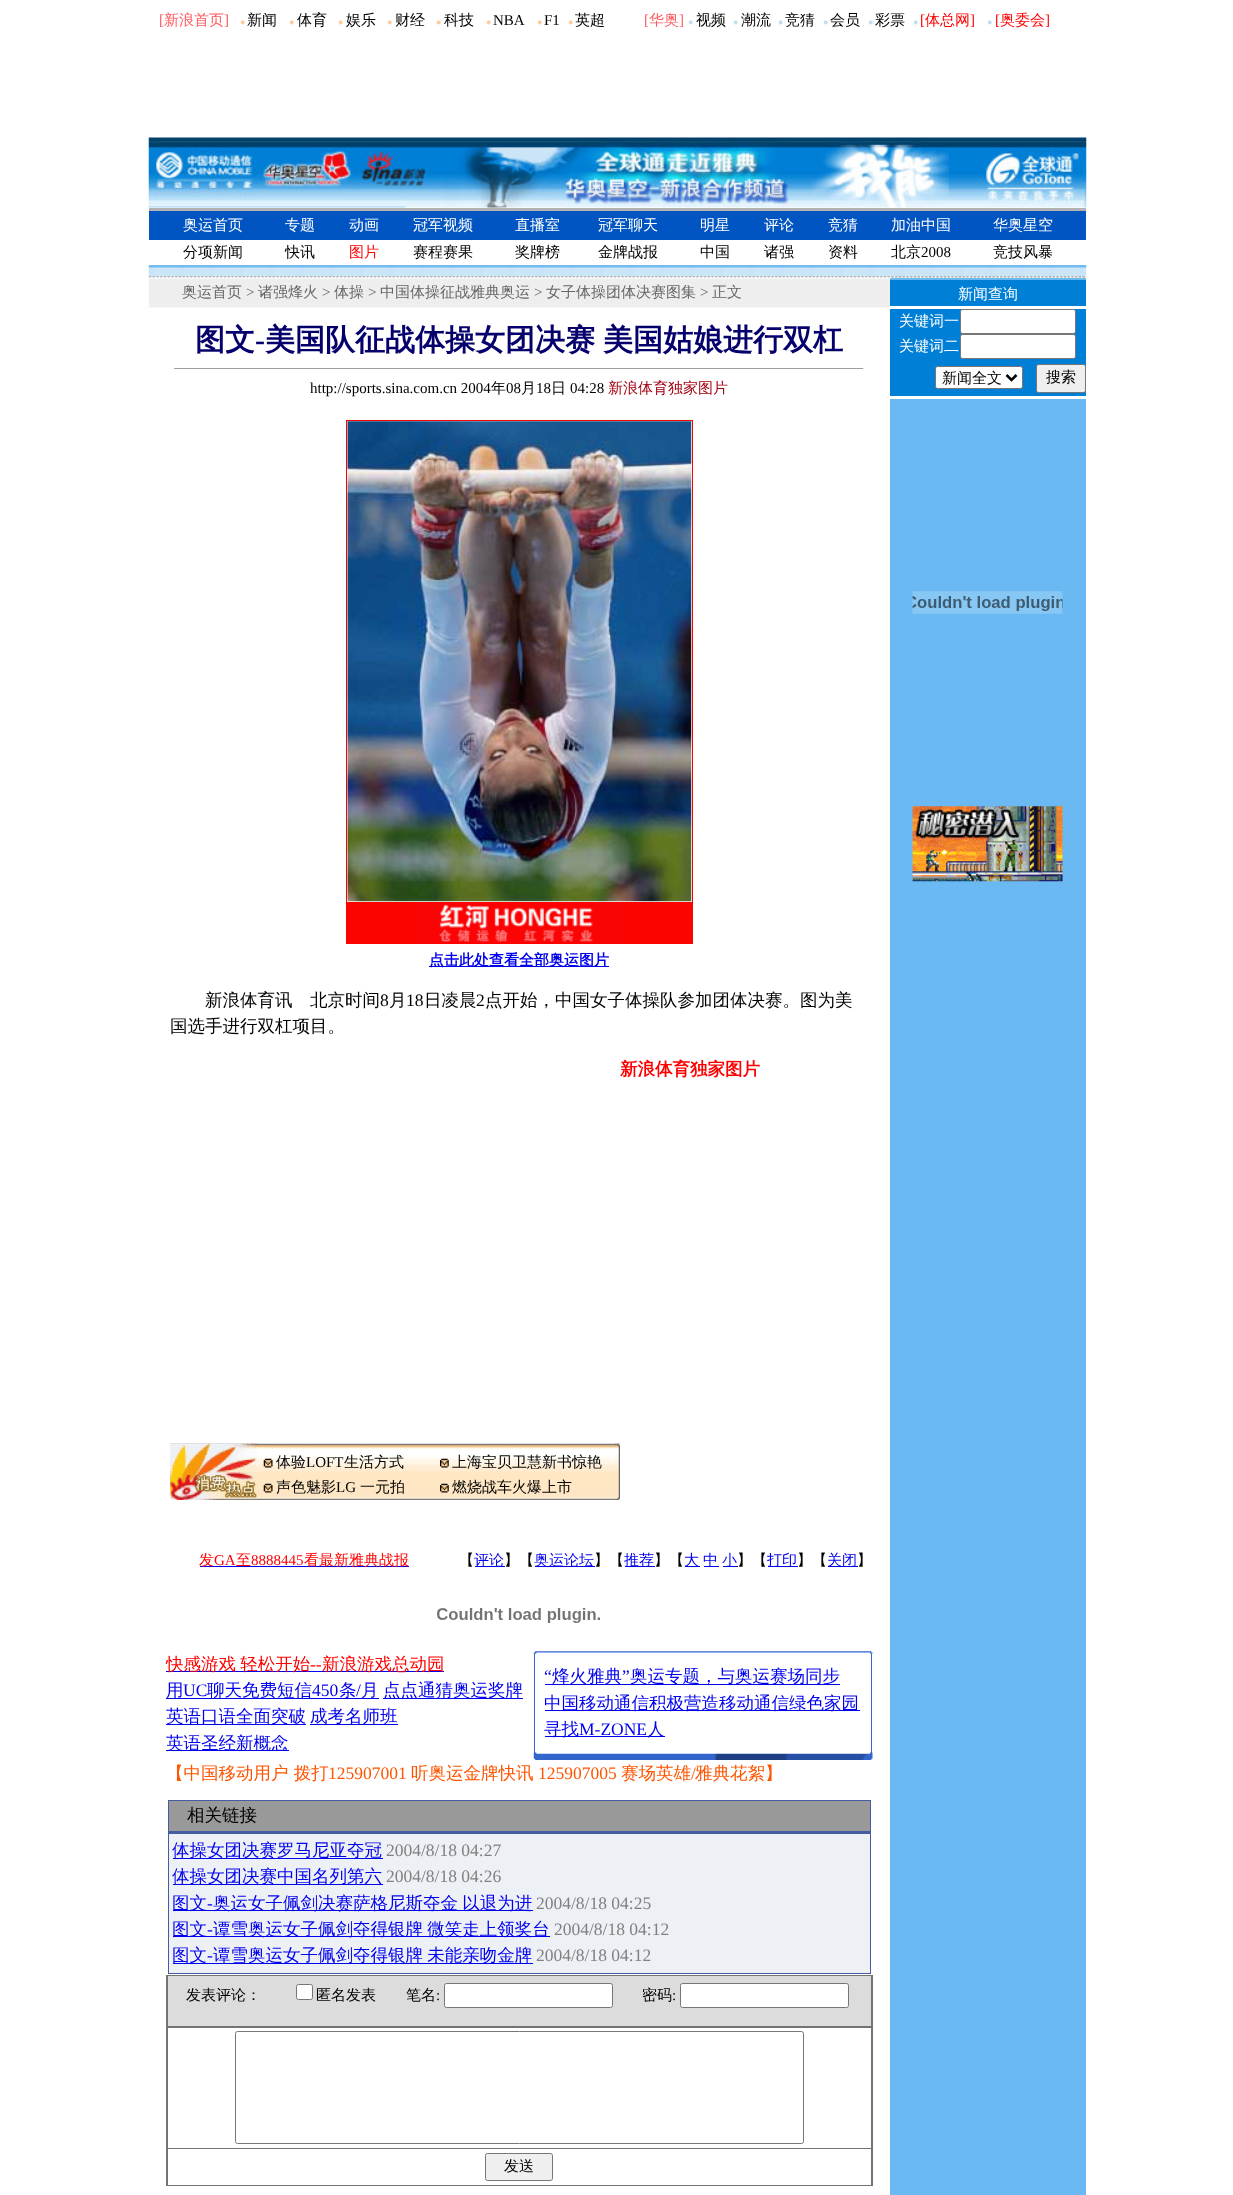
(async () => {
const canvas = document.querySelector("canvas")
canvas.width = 1233
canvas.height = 2195
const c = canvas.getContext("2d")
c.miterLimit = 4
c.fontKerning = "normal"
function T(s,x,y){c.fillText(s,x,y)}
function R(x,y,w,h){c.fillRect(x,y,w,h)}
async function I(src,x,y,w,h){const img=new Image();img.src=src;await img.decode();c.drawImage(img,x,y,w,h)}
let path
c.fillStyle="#fff"
R(0,0,1233,2195)
c.font="15px Liberation Serif"
c.fillStyle="#ff595e"
T("[",159,25)
c.font="500 15px WenQuanYi Zen Hei"
T("新浪首页",164,25)
c.font="15px Liberation Serif"
T("]",224,25)
c.font="9px Liberation Serif"
c.fillStyle="#fc9"
T("●",240,25)
c.font="500 15px WenQuanYi Zen Hei"
c.fillStyle="#000"
T("新闻",247,25)
c.font="9px Liberation Serif"
c.fillStyle="#fc9"
T("●",289,25)
c.font="500 15px WenQuanYi Zen Hei"
c.fillStyle="#000"
T("体育",297,25)
c.font="9px Liberation Serif"
c.fillStyle="#fc9"
T("●",338,25)
c.font="500 15px WenQuanYi Zen Hei"
c.fillStyle="#000"
T("娱乐",346,25)
c.font="9px Liberation Serif"
c.fillStyle="#fc9"
T("●",387,25)
c.font="500 15px WenQuanYi Zen Hei"
c.fillStyle="#000"
T("财经",395,25)
c.font="9px Liberation Serif"
c.fillStyle="#fc9"
T("●",436,25)
c.font="500 15px WenQuanYi Zen Hei"
c.fillStyle="#000"
T("科技",444,25)
c.font="9px Liberation Serif"
c.fillStyle="#fc9"
T("●",486,25)
c.font="15px Liberation Serif"
c.fillStyle="#000"
T("NBA",493,25)
c.font="9px Liberation Serif"
c.fillStyle="#fc9"
T("●",537,25)
c.font="15px Liberation Serif"
c.fillStyle="#000"
T("F1",544,25)
c.font="9px Liberation Serif"
c.fillStyle="#fc9"
T("●",568,25)
c.font="500 15px WenQuanYi Zen Hei"
c.fillStyle="#000"
T("英超",575,25)
c.font="15px Liberation Serif"
c.fillStyle="#ff595e"
T("[",644,25)
c.font="500 15px WenQuanYi Zen Hei"
T("华奥",649,25)
c.font="15px Liberation Serif"
T("]",679,25)
c.font="9px Liberation Serif"
c.fillStyle="#c1ddee"
T("●",688,25)
c.font="500 15px WenQuanYi Zen Hei"
c.fillStyle="#000"
T("视频",696,25)
c.font="9px Liberation Serif"
c.fillStyle="#c1ddee"
T("●",733,25)
c.font="500 15px WenQuanYi Zen Hei"
c.fillStyle="#000"
T("潮流",741,25)
c.font="9px Liberation Serif"
c.fillStyle="#c1ddee"
T("●",778,25)
c.font="500 15px WenQuanYi Zen Hei"
c.fillStyle="#000"
T("竞猜",785,25)
c.font="9px Liberation Serif"
c.fillStyle="#c1ddee"
T("●",823,25)
c.font="500 15px WenQuanYi Zen Hei"
c.fillStyle="#000"
T("会员",830,25)
c.font="9px Liberation Serif"
c.fillStyle="#c1ddee"
T("●",868,25)
c.font="500 15px WenQuanYi Zen Hei"
c.fillStyle="#000"
T("彩票",875,25)
c.font="9px Liberation Serif"
c.fillStyle="#c1ddee"
T("●",913,25)
c.font="15px Liberation Serif"
c.fillStyle="#f00"
T("[",920,25)
c.font="500 15px WenQuanYi Zen Hei"
T("体总网",925,25)
c.font="15px Liberation Serif"
T("]",970,25)
c.font="9px Liberation Serif"
c.fillStyle="#c1ddee"
T("●",987,25)
c.font="15px Liberation Serif"
c.fillStyle="#f00"
T("[",995,25)
c.font="500 15px WenQuanYi Zen Hei"
T("奥委会",1000,25)
c.font="15px Liberation Serif"
T("]",1045,25)
await I("1.png",148,137,939,71)
c.fillStyle="#b2b2b2"
R(149,208,937,3)
c.fillStyle="#0055c2"
R(149,211,937,29)
c.font="500 15px WenQuanYi Zen Hei"
c.fillStyle="#fff"
T("奥运首页",183,230)
T("专题",285,230)
T("动画",349,230)
T("冠军视频",413,230)
T("直播室",515,230)
T("冠军聊天",598,230)
T("明星",700,230)
T("评论",764,230)
T("竞猜",828,230)
T("加油中国",891,230)
T("华奥星空",993,230)
c.fillStyle="#000"
T("分项新闻",183,257)
T("快讯",285,257)
c.fillStyle="#f00"
T("图片",349,257)
c.fillStyle="#000"
T("赛程赛果",413,257)
T("奖牌榜",515,257)
T("金牌战报",598,257)
T("中国",700,257)
T("诸强",764,257)
T("资料",828,257)
T("北京",891,257)
c.font="15px Liberation Serif"
T("2008",921,257)
c.font="500 15px WenQuanYi Zen Hei"
T("竞技风暴",993,257)
await I("2.png",148,265,939,13)
await I("3.png",148,277,742,31)
c.fillStyle="#666"
T("奥运首页",182,297)
c.font="15px Liberation Serif"
T(">",246,297)
c.font="500 15px WenQuanYi Zen Hei"
T("诸强烽火",258,297)
c.font="15px Liberation Serif"
T(">",322,297)
c.font="500 15px WenQuanYi Zen Hei"
T("体操",334,297)
c.font="15px Liberation Serif"
T(">",368,297)
c.font="500 15px WenQuanYi Zen Hei"
T("中国体操征战雅典奥运",380,297)
c.font="15px Liberation Serif"
T(">",534,297)
c.font="500 15px WenQuanYi Zen Hei"
T("女子体操团体决赛图集",546,297)
c.font="15px Liberation Serif"
T(">",700,297)
c.font="500 15px WenQuanYi Zen Hei"
T("正文",712,297)
c.font="bold 30px WenQuanYi Zen Hei"
c.fillStyle="#05006c"
T("图文",195,350)
c.font="bold 30px Liberation Serif"
T("-",255,350)
c.wordSpacing="-1px"
c.font="bold 30px WenQuanYi Zen Hei"
T("美国队征战体操女团决赛 美国姑娘进行双杠",265,350)
c.fillStyle="#9f9f9f"
R(174,368,690,1)
c.fillStyle="#eee"
R(863,368,1,1)
c.wordSpacing="0px"
c.font="15px Liberation Serif"
c.fillStyle="#000"
T("http://sports.sina.com.cn 2004",310,393)
c.font="500 15px WenQuanYi Zen Hei"
T("年",491,393)
c.font="15px Liberation Serif"
T("08",506,393)
c.font="500 15px WenQuanYi Zen Hei"
T("月",521,393)
c.font="15px Liberation Serif"
T("18",536,393)
c.font="500 15px WenQuanYi Zen Hei"
T("日",551,393)
c.font="15px Liberation Serif"
T("04:28",570,393)
c.font="500 15px WenQuanYi Zen Hei"
c.fillStyle="#a20010"
T("新浪体育独家图片",608,393)
c.strokeStyle="#fb0400"
c.strokeRect(346.5,420.5,346,482)
await I("4.png",347,421,345,481)
c.fillStyle="#fb0400"
R(346,903,347,41)
await I("5.png",413,902,212,41)
c.fillStyle="#00e"
R(429,966,180,1)
c.font="bold 15px WenQuanYi Zen Hei"
T("点击此处查看全部奥运图片",429,965)
c.font="500 17.5px WenQuanYi Zen Hei"
c.fillStyle="#000"
T("新浪体育讯　北京时间",205,1006)
c.font="17.5px Liberation Serif"
T("8",380,1006)
c.font="500 17.5px WenQuanYi Zen Hei"
T("月",389,1006)
c.font="17.5px Liberation Serif"
T("18",406,1006)
c.font="500 17.5px WenQuanYi Zen Hei"
T("日凌晨",424,1006)
c.font="17.5px Liberation Serif"
T("2",476,1006)
c.font="500 17.5px WenQuanYi Zen Hei"
T("点开始，中国女子体操队参加团体决赛。图为美",485,1006)
T("国选手进行双杠项目。",170,1032)
c.font="bold 17.5px WenQuanYi Zen Hei"
c.fillStyle="#f00"
T("新浪体育独家图片",620,1075)
await I("6.png",170,1443,450,57)
await I("7.png",170,1443,88,57)
await I("8.png",263,1458,10,10)
c.font="500 15px WenQuanYi Zen Hei"
c.fillStyle="#000"
T("体验",276,1467)
c.font="15px Liberation Serif"
T("LOFT",306,1467)
c.font="500 15px WenQuanYi Zen Hei"
T("生活方式",344,1467)
await I("9.png",440,1458,9,10)
T("上海宝贝卫慧新书惊艳",452,1467)
await I("10.png",615,1443,5,57)
await I("11.png",263,1483,10,10)
T("声色魅影",276,1492)
c.font="15px Liberation Serif"
T("LG",336,1492)
c.font="500 15px WenQuanYi Zen Hei"
T("一元拍",360,1492)
await I("12.png",440,1483,9,10)
T("燃烧战车火爆上市",452,1492)
c.fillStyle="#00e"
R(200,1566,209,1)
c.fillStyle="#f00"
T("发",199,1565)
c.font="15px Liberation Serif"
T("GA",214,1565)
c.font="500 15px WenQuanYi Zen Hei"
T("至",236,1565)
c.font="15px Liberation Serif"
T("8888445",251,1565)
c.font="500 15px WenQuanYi Zen Hei"
T("看最新雅典战报",304,1565)
c.fillStyle="#000"
T("【",459,1565)
c.fillStyle="#00e"
R(475,1566,30,1)
T("评论",474,1565)
c.fillStyle="#000"
T("】【",504,1565)
c.fillStyle="#00e"
R(535,1566,60,1)
T("奥运论坛",534,1565)
c.fillStyle="#000"
T("】【",594,1565)
c.fillStyle="#00e"
R(625,1566,30,1)
T("推荐",624,1565)
c.fillStyle="#000"
T("】【",654,1565)
c.fillStyle="#00e"
R(685,1566,15,1)
T("大",684,1565)
R(704,1566,15,1)
T("中",703,1565)
R(723,1566,15,1)
T("小",722,1565)
c.fillStyle="#000"
T("】【",737,1565)
c.fillStyle="#00e"
R(768,1566,30,1)
T("打印",767,1565)
c.fillStyle="#000"
T("】【",797,1565)
c.fillStyle="#00e"
R(828,1566,30,1)
T("关闭",827,1565)
c.fillStyle="#000"
T("】",857,1565)
await I("13.png",437,1608,163,15)
c.fillStyle="#00e"
R(166,1671,278,1)
c.wordSpacing="-1px"
c.font="500 17.5px WenQuanYi Zen Hei"
c.fillStyle="#f00"
T("快感游戏 轻松开始",166,1670)
c.wordSpacing="0px"
c.font="17.5px Liberation Serif"
T("--",310,1670)
c.font="500 17.5px WenQuanYi Zen Hei"
T("新浪游戏总动园",322,1670)
c.fillStyle="#00e"
R(166,1698,213,1)
T("用",166,1696)
c.font="17.5px Liberation Serif"
T("UC",183,1696)
c.font="500 17.5px WenQuanYi Zen Hei"
T("聊天免费短信",207,1696)
c.font="17.5px Liberation Serif"
T("450",312,1696)
c.font="500 17.5px WenQuanYi Zen Hei"
T("条",339,1696)
c.font="17.5px Liberation Serif"
T("/",356,1696)
c.font="500 17.5px WenQuanYi Zen Hei"
T("月",361,1696)
R(383,1698,140,1)
T("点点通猜奥运奖牌",383,1696)
R(166,1724,140,1)
T("英语口语全面突破",166,1722)
R(310,1724,88,1)
T("成考名师班",310,1722)
R(166,1750,123,1)
T("英语圣经新概念",166,1749)
await I("14.png",533,1651,340,3)
c.fillStyle="#36c"
R(871,1654,1,99)
R(534,1654,1,99)
c.font="17.5px Liberation Serif"
c.fillStyle="#00e"
T("“",544,1682)
R(545,1684,295,1)
c.font="500 17.5px WenQuanYi Zen Hei"
T("烽火雅典",552,1682)
c.font="17.5px Liberation Serif"
T("”",622,1682)
c.font="500 17.5px WenQuanYi Zen Hei"
T("奥运专题，与奥运赛场同步",630,1682)
R(545,1710,315,1)
T("中国移动通信积极营造移动通信绿色家园",544,1709)
R(545,1736,120,1)
T("寻找",544,1735)
c.font="17.5px Liberation Serif"
T("M-ZONE",579,1735)
c.font="500 17.5px WenQuanYi Zen Hei"
T("人",647,1735)
await I("15.png",533,1752,340,8)
c.fillStyle="#ff5400"
T("【中国移动用户 拨打",166,1779)
c.font="17.5px Liberation Serif"
T("125907001",328,1779)
c.font="500 17.5px WenQuanYi Zen Hei"
T("听奥运金牌快讯",411,1779)
c.font="17.5px Liberation Serif"
T("125907005",538,1779)
c.font="500 17.5px WenQuanYi Zen Hei"
T("赛场英雄",621,1779)
c.font="17.5px Liberation Serif"
T("/",691,1779)
c.font="500 17.5px WenQuanYi Zen Hei"
T("雅典花絮】",695,1779)
c.fillStyle="#455ca2"
R(168,1800,703,174)
c.fillStyle="#999"
R(169,1801,701,30)
c.fillStyle="#000"
T("相关链接",187,1821)
c.fillStyle="#edf0f5"
R(169,1834,701,139)
c.fillStyle="#00e"
R(173,1858,210,1)
T("体操女团决赛罗马尼亚夺冠",172,1856)
c.font="17.5px Liberation Serif"
c.fillStyle="#808080"
T("2004/8/18 04:27",386,1856)
c.fillStyle="#00e"
R(173,1884,210,1)
c.font="500 17.5px WenQuanYi Zen Hei"
T("体操女团决赛中国名列第六",172,1882)
c.font="17.5px Liberation Serif"
c.fillStyle="#808080"
T("2004/8/18 04:26",386,1882)
c.fillStyle="#00e"
R(173,1910,360,1)
c.font="500 17.5px WenQuanYi Zen Hei"
T("图文",172,1909)
c.font="17.5px Liberation Serif"
T("-",207,1909)
c.wordSpacing="-1px"
c.font="500 17.5px WenQuanYi Zen Hei"
T("奥运女子佩剑决赛萨格尼斯夺金 以退为进",213,1909)
c.wordSpacing="0px"
c.font="17.5px Liberation Serif"
c.fillStyle="#808080"
T("2004/8/18 04:25",536,1909)
c.fillStyle="#00e"
R(173,1936,377,1)
c.font="500 17.5px WenQuanYi Zen Hei"
T("图文",172,1935)
c.font="17.5px Liberation Serif"
T("-",207,1935)
c.wordSpacing="-1px"
c.font="500 17.5px WenQuanYi Zen Hei"
T("谭雪奥运女子佩剑夺得银牌 微笑走上领奖台",213,1935)
c.wordSpacing="0px"
c.font="17.5px Liberation Serif"
c.fillStyle="#808080"
T("2004/8/18 04:12",554,1935)
c.fillStyle="#00e"
R(173,1963,360,1)
c.font="500 17.5px WenQuanYi Zen Hei"
T("图文",172,1961)
c.font="17.5px Liberation Serif"
T("-",207,1961)
c.wordSpacing="-1px"
c.font="500 17.5px WenQuanYi Zen Hei"
T("谭雪奥运女子佩剑夺得银牌 未能亲吻金牌",213,1961)
c.wordSpacing="0px"
c.font="17.5px Liberation Serif"
c.fillStyle="#808080"
T("2004/8/18 04:12",536,1961)
c.fillStyle="#737373"
R(166,1975,707,211)
c.fillStyle="#dcdcdc"
R(168,1976,703,50)
c.font="500 15px WenQuanYi Zen Hei"
c.fillStyle="#000"
T("发表评论：",186,2000)
c.fillStyle="#fff"
c.beginPath()
c.roundRect(296.5,1984.5,16,15,2)
c.fill()
c.strokeStyle="#767676"
c.stroke()
c.fillStyle="#000"
T("匿名发表　　笔名",316,2000)
c.font="15px Liberation Serif"
T(":",436,2000)
c.fillStyle="#fff"
c.beginPath()
c.roundRect(444.5,1983.5,168,24,2)
c.fill()
c.stroke()
c.font="500 15px WenQuanYi Zen Hei"
c.fillStyle="#000"
T("密码",642,2000)
c.font="15px Liberation Serif"
T(":",672,2000)
c.fillStyle="#fff"
c.beginPath()
c.roundRect(680.5,1983.5,168,24,2)
c.fill()
c.stroke()
R(168,2028,703,120)
c.beginPath()
c.roundRect(235.5,2031.5,568,112,2)
c.stroke()
R(168,2149,703,36)
c.fillStyle="#efefef"
c.beginPath()
c.roundRect(485.5,2153.5,67,27,2)
c.fill()
c.stroke()
c.font="500 15px WenQuanYi Zen Hei"
c.fillStyle="#000"
T("发送",504,2171)
c.fillStyle="#6ab9f2"
R(890,399,196,1796)
c.fillStyle="#68b9f0"
R(890,278,196,2)
c.fillStyle="#007fd6"
R(890,280,196,26)
c.fillStyle="#fff"
T("新闻查询",958,299)
c.fillStyle="#007fd6"
R(890,309,196,87)
c.fillStyle="#fff"
T("关键词一",899,326)
c.beginPath()
c.roundRect(960.5,309.5,115,24,2)
c.fill()
c.stroke()
T("关键词二",899,351)
c.beginPath()
c.roundRect(960.5,334.5,115,24,2)
c.fill()
c.stroke()
c.beginPath()
c.roundRect(935.5,366.5,87,22,2)
c.fill()
c.stroke()
path = new Path2D("M1006.5 375l5 5l5-5")
c.strokeStyle="#000"
c.lineWidth=2.5
c.stroke(path)
c.fillStyle="#000"
T("新闻全文",942,383)
c.fillStyle="#efefef"
c.beginPath()
c.roundRect(1036.5,364.5,49,28,2)
c.fill()
c.strokeStyle="#767676"
c.lineWidth=1
c.stroke()
c.fillStyle="#000"
T("搜索",1046,382)
await I("16.png",912,591,151,23)
await I("17.png",912,806,151,76)
})()
